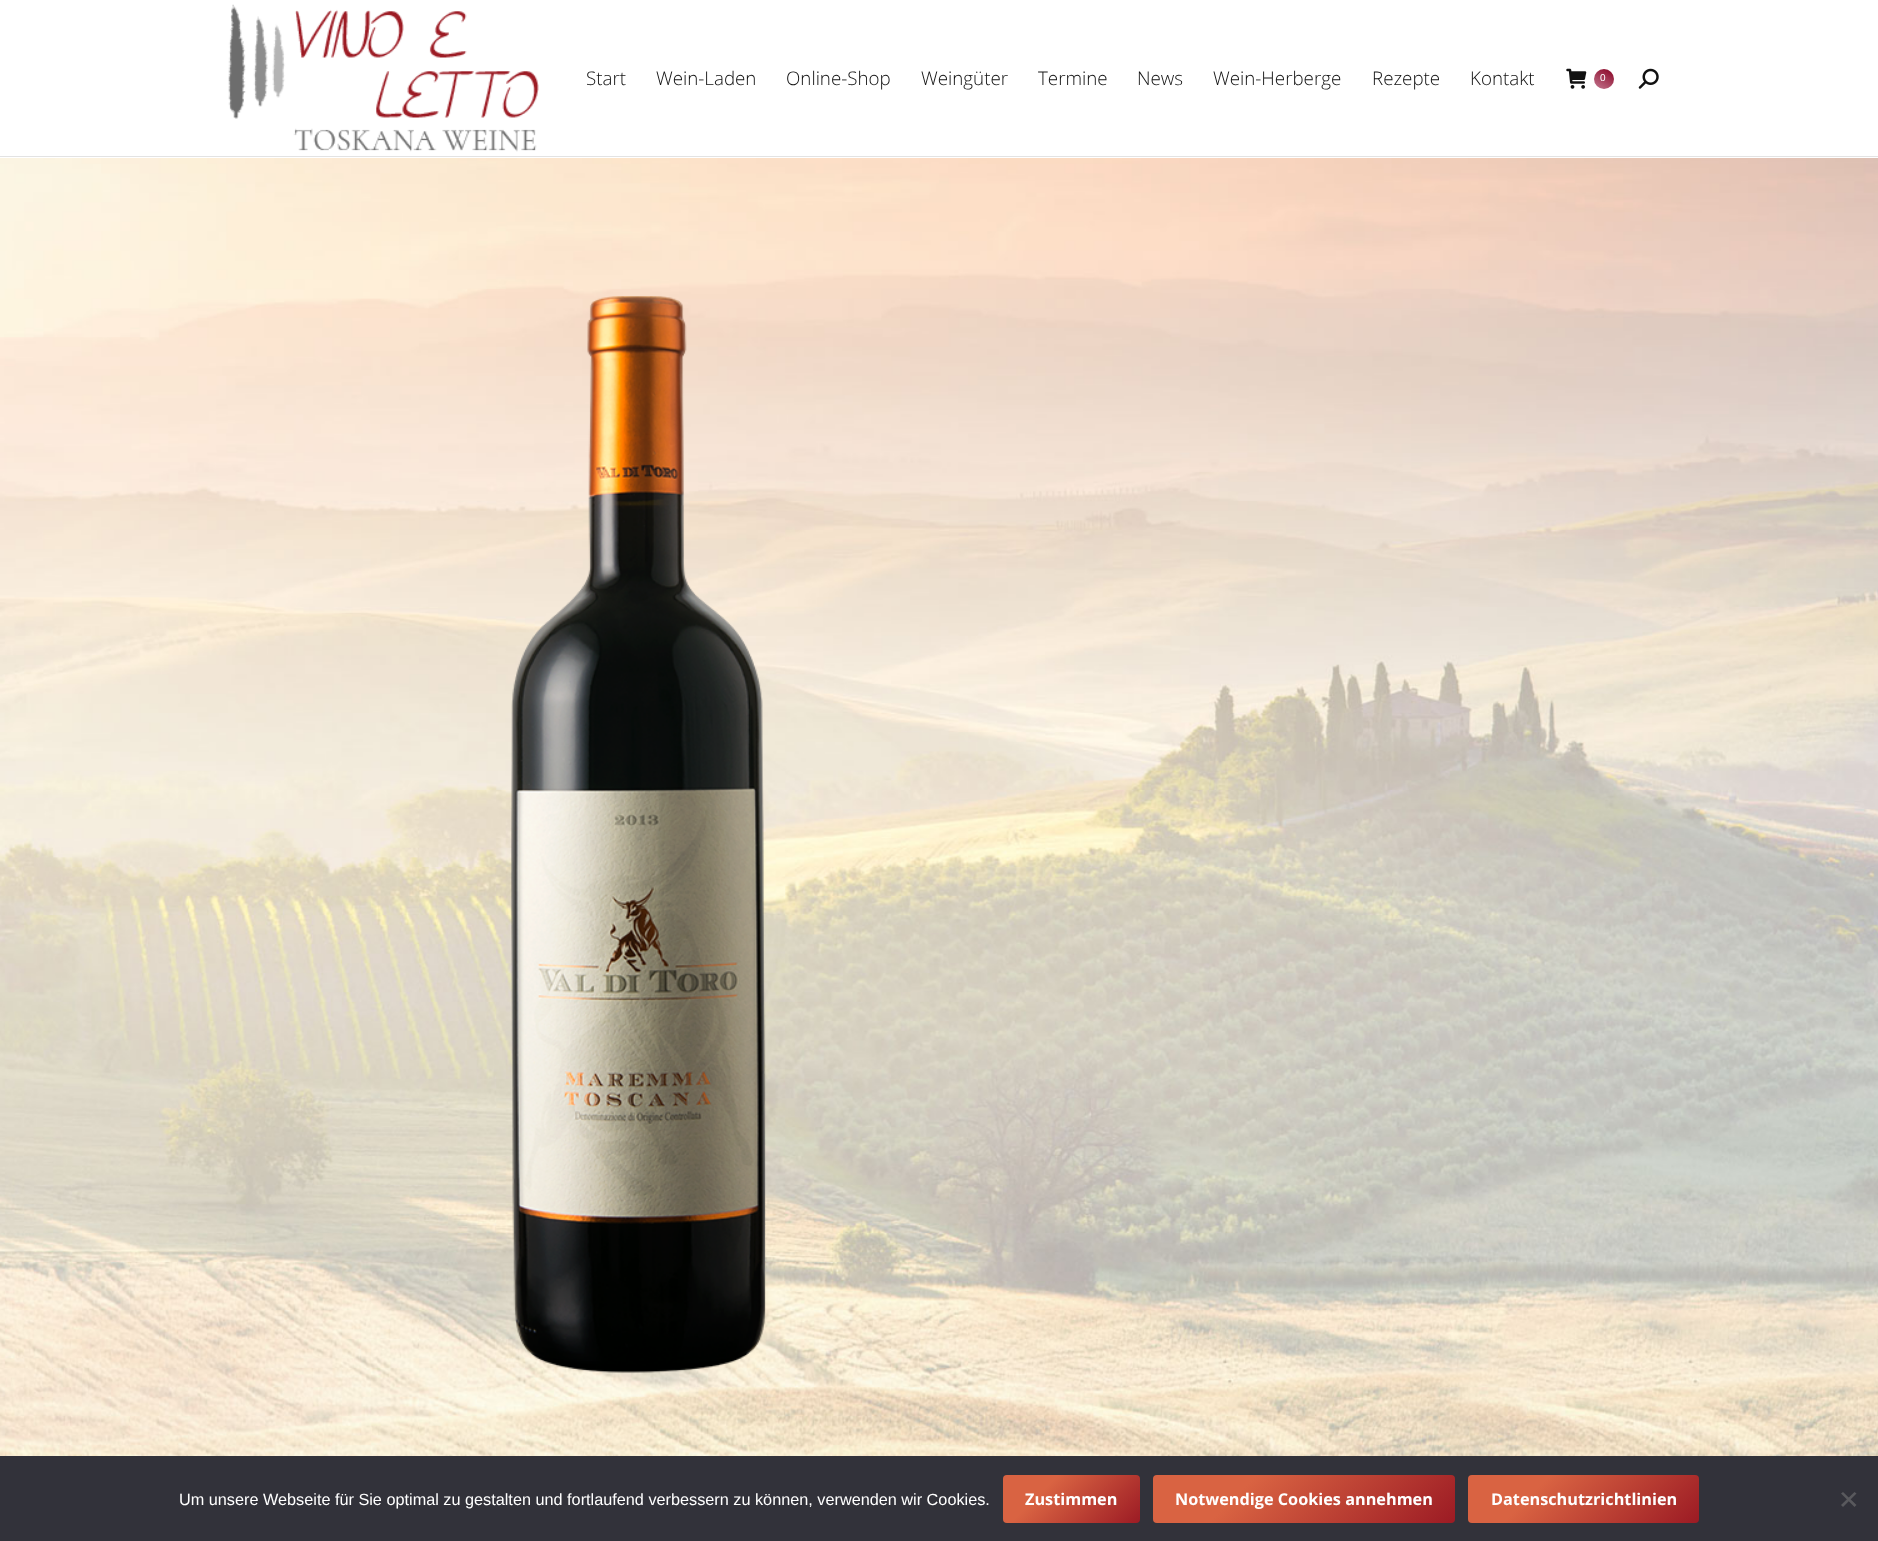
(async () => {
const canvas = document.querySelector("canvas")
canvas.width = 1878
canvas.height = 1541
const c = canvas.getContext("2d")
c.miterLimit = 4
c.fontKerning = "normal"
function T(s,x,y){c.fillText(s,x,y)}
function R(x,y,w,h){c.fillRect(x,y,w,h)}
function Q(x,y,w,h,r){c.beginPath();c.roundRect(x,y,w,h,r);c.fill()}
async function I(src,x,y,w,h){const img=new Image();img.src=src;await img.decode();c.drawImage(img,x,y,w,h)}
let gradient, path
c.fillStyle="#fff"
R(0,0,1878,1541)
c.fillStyle="#e3e3e3"
R(0,156,1878,1)
await I("1.png",228,4,311,148)
c.font="300 18.75px Open Sans"
c.fillStyle="#111"
T("Start",586,85)
T("Wein-Laden",656,85)
T("Online-Shop",786,85)
T("Weingüter",921,85)
T("Termine",1038,85)
T("News",1137,85)
T("Wein-Herberge",1213,85)
T("Rezepte",1372,85)
T("Kontakt",1470,85)
await I("2.png",1566,68,21,21)
gradient = c.createLinearGradient(1597,91,1611,67)
gradient.addColorStop(0,"#c47991")
gradient.addColorStop(1,"#870021")
c.fillStyle = gradient
c.beginPath()
c.arc(1604,79,10,0,7)
c.fill()
c.font="10px Liberation Sans"
c.fillStyle="#fff"
T("0",1600,81)
await I("3.png",1638,68,21,21)
await I("4.png",0,158,1878,1298)
await I("5.png",511,296,255,1077)
c.fillStyle="#32323a"
R(0,1456,1878,85)
c.font="16.25px Liberation Sans"
c.fillStyle="#fff"
T("Um unsere Webseite für Sie optimal zu gestalten und fortlaufend verbessern zu können, verwenden wir Cookies.",179,1505)
gradient = c.createLinearGradient(1025,1453,1118,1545)
gradient.addColorStop(.3,"#d96342")
gradient.addColorStop(1,"#9c1b24")
c.fillStyle = gradient
Q(1003,1475,137,48,4)
c.font="bold 16.25px Open Sans"
c.fillStyle="#fff"
T("Zustimmen",1025,1505)
gradient = c.createLinearGradient(1216,1411,1391,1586)
gradient.addColorStop(.3,"#d96342")
gradient.addColorStop(1,"#9c1b24")
c.fillStyle = gradient
Q(1153,1475,302,48,4)
c.fillStyle="#fff"
T("Notwendige Cookies annehmen",1175,1505)
gradient = c.createLinearGradient(1513,1429,1653,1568)
gradient.addColorStop(.3,"#d96342")
gradient.addColorStop(1,"#9c1b24")
c.fillStyle = gradient
Q(1468,1475,231,48,4)
c.fillStyle="#fff"
T("Datenschutzrichtlinien",1491,1505)
c.fillStyle="#59595d"
path = new Path2D("M1854.5 1492l2 1.5l-13.5 13.5l-2-2z")
c.fill(path)
path = new Path2D("M1841 1493.5l2-1.5l13.5 13l-2 2z")
c.fill(path)
})()
